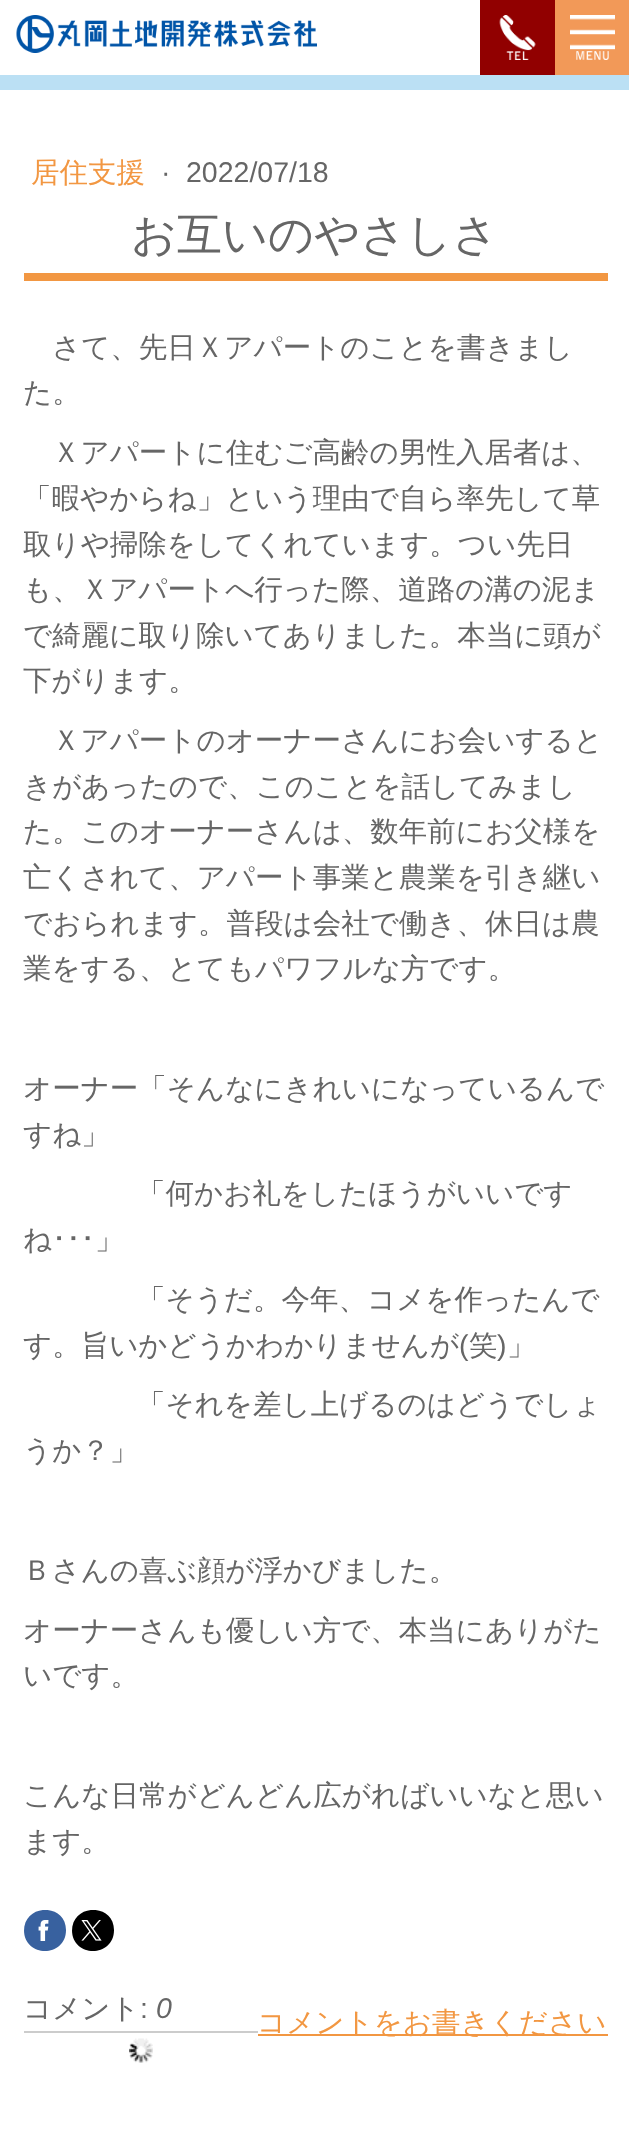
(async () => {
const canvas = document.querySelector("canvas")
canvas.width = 629
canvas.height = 2140
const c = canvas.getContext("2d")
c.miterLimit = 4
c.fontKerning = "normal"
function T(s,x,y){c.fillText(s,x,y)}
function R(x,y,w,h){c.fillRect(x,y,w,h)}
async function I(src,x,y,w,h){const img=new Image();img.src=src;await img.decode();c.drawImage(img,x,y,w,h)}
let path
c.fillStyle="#fff"
R(0,0,629,2140)
c.fillStyle="#910000"
R(480,0,75,75)
await I("1.png",499,15,37,45)
c.fillStyle="#f29958"
R(555,0,74,75)
await I("2.png",570,15,45,45)
c.fillStyle="#bbe0f4"
R(0,75,629,15)
await I("3.png",16,15,301,38)
c.font="500 28.5px WenQuanYi Zen Hei"
c.fillStyle="#f29742"
T("居住支援",31,182)
c.font="28.5px Liberation Sans"
c.fillStyle="#666"
T("·",161,182)
T("2022/07/18",186,182)
c.fillStyle="#f29742"
R(24,273,584,8)
c.font="500 45px WenQuanYi Zen Hei"
c.fillStyle="#666"
T("お互いのやさしさ",131,250)
c.font="500 28.5px WenQuanYi Zen Hei"
T("さて、先日Ｘアパートのことを書きまし",52,357)
T("た。",23,402)
T("Ｘアパートに住むご高齢の男性入居者は、",52,462)
T("「暇やからね」という理由で自ら率先して草",23,508)
T("取りや掃除をしてくれています。つい先日",23,554)
T("も、Ｘアパートへ行った際、道路の溝の泥ま",23,599)
T("で綺麗に取り除いてありました。本当に頭が",23,645)
T("下がります。",23,690)
T("Ｘアパートのオーナーさんにお会いすると",52,750)
T("きがあったので、このことを話してみまし",23,796)
T("た。このオーナーさんは、数年前にお父様を",23,841)
T("亡くされて、アパート事業と農業を引き継い",23,887)
T("でおられます。普段は会社で働き、休日は農",23,933)
T("業をする、とてもパワフルな方です。",23,978)
T("オーナー「そんなにきれいになっているんで",23,1098)
T("すね」",23,1144)
T("「何かお礼をしたほうがいいです",137,1203)
T("ね",23,1249)
c.font="28.5px IPAPGothic"
T("･･･",52,1249)
c.font="500 28.5px WenQuanYi Zen Hei"
T("」",95,1249)
T("「そうだ。今年、コメを作ったんで",137,1309)
T("す。旨いかどうかわかりませんが",23,1355)
c.font="28.5px Liberation Sans"
T("(",459,1355)
c.font="500 28.5px WenQuanYi Zen Hei"
T("笑",469,1355)
c.font="28.5px Liberation Sans"
T(")",497,1355)
c.font="500 28.5px WenQuanYi Zen Hei"
T("」",507,1355)
T("「それを差し上げるのはどうでしょ",137,1414)
T("うか？」",23,1460)
T("Ｂさんの喜ぶ顔が浮かびました。",23,1580)
T("オーナーさんも優しい方で、本当にありがた",23,1640)
T("いです。",23,1685)
T("こんな日常がどんどん広がればいいなと思い",23,1805)
T("ます。",23,1851)
c.save()
c.beginPath()
c.rect(24,1910,584,61)
c.clip()
c.fillStyle="#38619f"
path = new Path2D("M24 1930c0 28 42 28 42 0c0-27-42-27-42 1z")
c.fill(path)
c.restore()
await I("4.png",38,1920,11,21)
c.save()
c.beginPath()
c.rect(24,1910,584,61)
c.clip()
c.fillStyle="#000"
path = new Path2D("M72 1930c0 28 42 28 42 0c0-27-42-27-42 1z")
c.fill(path)
c.restore()
await I("5.png",81,1920,21,21)
T("コメント",23,2018)
c.font="28.5px Liberation Sans"
T(":",140,2018)
c.font="italic 28.5px Liberation Sans"
T("0",156,2018)
c.fillStyle="#f29742"
R(258,2034,350,2)
c.font="500 28.5px WenQuanYi Zen Hei"
T("コメントをお書きください",257,2032)
await I("6.png",129,2038,24,25)
c.fillStyle="#ccc"
R(24,2031,234,2)
})()
